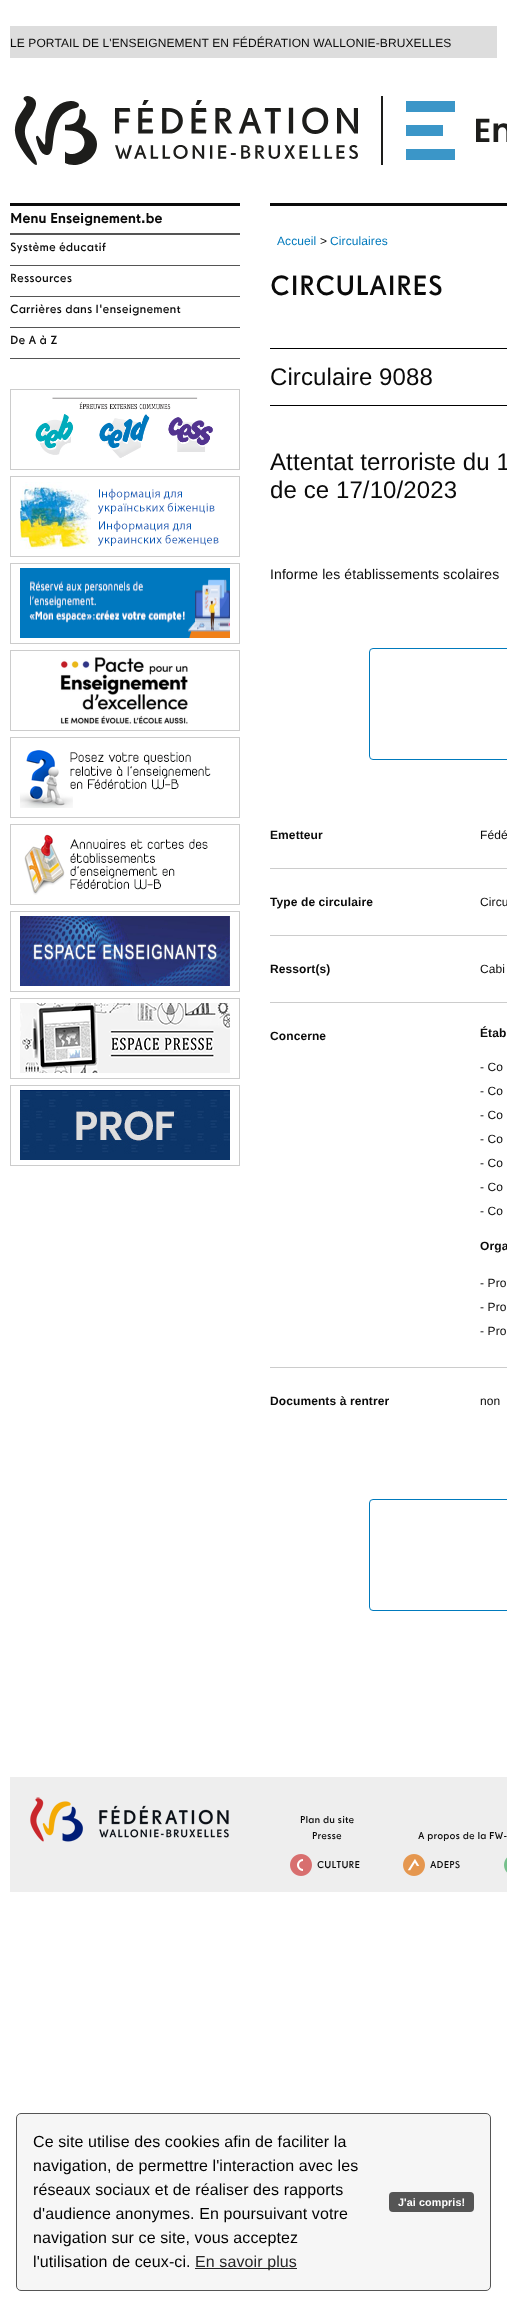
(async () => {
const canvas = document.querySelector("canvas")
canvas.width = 507
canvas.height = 2307
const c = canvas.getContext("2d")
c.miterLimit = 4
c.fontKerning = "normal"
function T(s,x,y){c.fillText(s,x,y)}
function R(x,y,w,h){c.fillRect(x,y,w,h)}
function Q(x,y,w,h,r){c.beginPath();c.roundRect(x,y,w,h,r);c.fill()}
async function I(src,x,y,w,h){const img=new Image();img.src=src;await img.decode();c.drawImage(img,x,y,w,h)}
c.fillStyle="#fff"
R(0,0,507,2307)
c.fillStyle="#ddd"
R(10,26,487,32)
c.letterSpacing="0.1px"
c.font="12px Liberation Sans"
c.fillStyle="#0a0a0a"
T("LE PORTAIL DE L'ENSEIGNEMENT EN FÉDÉRATION WALLONIE-BRUXELLES",10,47)
await I("1.png",14,96,493,69)
R(10,203,230,3)
c.fillStyle="#555"
R(10,233,230,2)
c.font="bold 14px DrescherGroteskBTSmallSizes"
c.fillStyle="#0a0a0a"
T("Menu Enseignement.be",10,223)
c.fillStyle="#555"
R(10,358,230,1)
c.font="12px DrescherGroteskBTSmallSizes"
c.fillStyle="#0a0a0a"
T("Système éducatif",10,251)
c.fillStyle="#555"
R(10,265,230,1)
c.fillStyle="#0a0a0a"
T("Ressources",10,282)
c.fillStyle="#555"
R(10,296,230,1)
c.fillStyle="#0a0a0a"
T("Carrières dans l'enseignement",10,313)
c.fillStyle="#555"
R(10,327,230,1)
c.fillStyle="#0a0a0a"
T("De A à Z",10,344)
c.strokeStyle="#ccc"
c.strokeRect(10.5,389.5,229,80)
await I("2.png",35,397,178,61)
c.strokeRect(10.5,476.5,229,80)
await I("3.png",20,482,199,67)
c.strokeRect(10.5,563.5,229,80)
await I("4.png",20,568,210,70)
c.strokeRect(10.5,650.5,229,80)
await I("5.png",60,657,128,67)
c.strokeRect(10.5,737.5,229,80)
await I("6.png",20,750,191,58)
c.strokeRect(10.5,824.5,229,80)
await I("7.png",24,834,184,61)
c.strokeRect(10.5,911.5,229,80)
await I("8.png",20,916,210,70)
c.strokeRect(10.5,998.5,229,80)
await I("9.png",20,1003,210,70)
c.strokeRect(10.5,1085.5,229,80)
await I("10.png",20,1090,210,70)
R(270,203,237,3)
c.font="12px Liberation Sans"
c.fillStyle="#0079bc"
T("Accueil",277,245)
c.fillStyle="#0a0a0a"
T(">",320,245)
c.fillStyle="#0079bc"
T("Circulaires",330,245)
c.font="28px DrescherGroteskBTSmallSizes"
c.fillStyle="#0a0a0a"
T("CIRCULAIRES",270,295)
c.fillStyle="#000"
R(270,348,237,1)
R(270,405,237,1)
c.font="24px Liberation Sans"
c.fillStyle="#0a0a0a"
T("Circulaire 9088",270,385)
T("Attentat terroriste du 1",270,470)
T("de ce 17/10/2023",270,498)
c.font="14px Liberation Sans"
T("Informe les établissements scolaires",270,579)
c.beginPath()
c.roundRect(369.5,648.5,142,111,3.5)
c.strokeStyle="#007abd"
c.stroke()
c.fillStyle="#ccc"
R(270,868,237,1)
c.font="bold 12px Liberation Sans"
c.fillStyle="#0a0a0a"
T("Emetteur",270,839)
c.font="12px Liberation Sans"
T("Fédé",480,839)
c.fillStyle="#ccc"
R(270,935,237,1)
c.font="bold 12px Liberation Sans"
c.fillStyle="#0a0a0a"
T("Type de circulaire",270,906)
c.font="12px Liberation Sans"
T("Circu",480,906)
c.fillStyle="#ccc"
R(270,1002,237,1)
c.font="bold 12px Liberation Sans"
c.fillStyle="#0a0a0a"
T("Ressort(s)",270,973)
c.font="12px Liberation Sans"
T("Cabi",480,973)
c.fillStyle="#ccc"
R(270,1367,237,1)
c.font="bold 12px Liberation Sans"
c.fillStyle="#0a0a0a"
T("Concerne",270,1040)
T("Étab",480,1037)
c.font="12px Liberation Sans"
T("- Co",480,1071)
T("- Co",480,1095)
T("- Co",480,1119)
T("- Co",480,1143)
T("- Co",480,1167)
T("- Co",480,1191)
T("- Co",480,1215)
c.font="bold 12px Liberation Sans"
T("Orga",480,1250)
c.font="12px Liberation Sans"
T("- Pro",480,1287)
T("- Pro",480,1311)
T("- Pro",480,1335)
c.font="bold 12px Liberation Sans"
T("Documents à rentrer",270,1405)
c.font="12px Liberation Sans"
T("non",480,1405)
c.beginPath()
c.roundRect(369.5,1499.5,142,111,3.5)
c.stroke()
c.fillStyle="#eee"
R(10,1777,497,115)
await I("11.png",30,1797,199,45)
c.font="10px DrescherGroteskBTSmallSizes"
c.fillStyle="#0a0a0a"
T("Plan du site",300,1823)
T("Presse",312,1839)
T("A propos de la FW-",418,1839)
await I("12.png",290,1854,22,22)
T("CULTURE",317,1868)
await I("13.png",403,1854,22,22)
T("ADEPS",430,1868)
await I("14.png",504,1857,3,16)
c.fillStyle="#f6f6f6"
c.beginPath()
c.roundRect(16.5,2113.5,474,177,4.5)
c.fill()
c.strokeStyle="#555"
c.stroke()
c.font="16px Liberation Sans"
c.fillStyle="#000"
T("Ce site utilise des cookies afin de faciliter la",33,2147)
T("navigation, de permettre l'interaction avec les",33,2171)
T("réseaux sociaux et de réaliser des rapports",33,2195)
T("d'audience anonymes. En poursuivant votre",33,2219)
T("navigation sur ce site, vous acceptez",33,2243)
T("l'utilisation de ceux-ci.",33,2267)
c.fillStyle="#252525"
R(195,2268,102,1)
T("En savoir plus",195,2267)
c.fillStyle="#555"
Q(389,2192,85,20,4)
c.font="bold 10.75px Liberation Sans"
c.fillStyle="#fff"
T("J'ai compris!",398,2206)
})()
